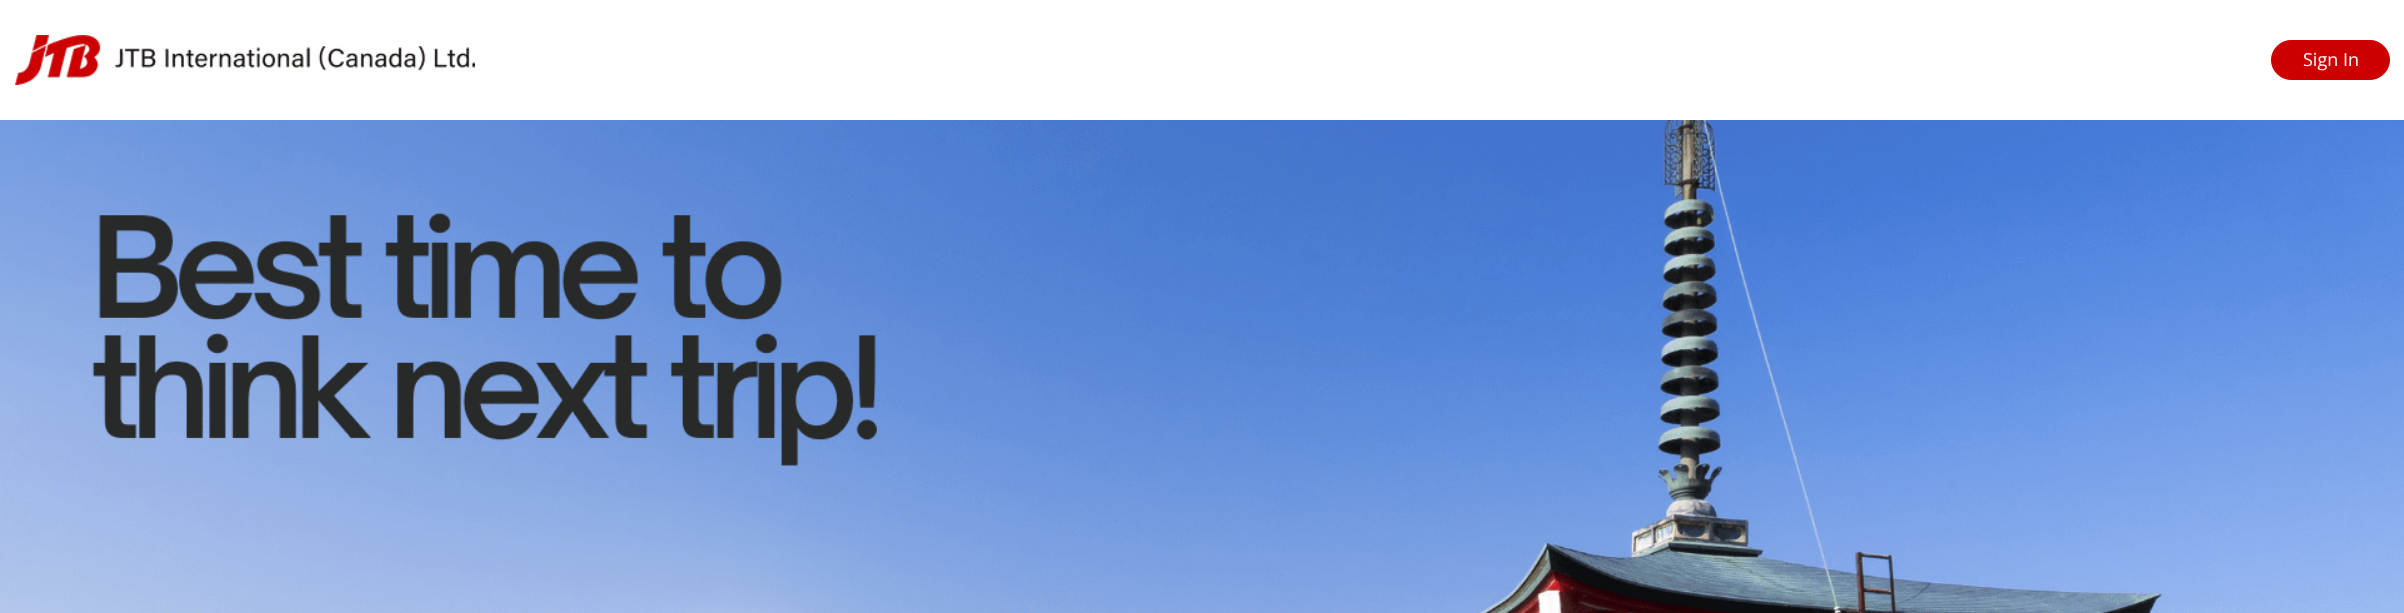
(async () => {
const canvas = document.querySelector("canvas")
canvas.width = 2404
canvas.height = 613
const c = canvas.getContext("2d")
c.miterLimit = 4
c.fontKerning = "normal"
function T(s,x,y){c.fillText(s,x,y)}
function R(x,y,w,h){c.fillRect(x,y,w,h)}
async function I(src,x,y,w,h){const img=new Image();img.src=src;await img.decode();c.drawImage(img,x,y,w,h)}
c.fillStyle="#fff"
R(0,0,2404,613)
await I("1.png",15,35,460,50)
c.fillStyle="#c00"
c.beginPath()
c.roundRect(2271.5,40.5,118,39,19.5)
c.fill()
c.strokeStyle="#c00"
c.stroke()
c.font="18px Open Sans"
c.fillStyle="#fff"
T("Sign In",2303,66)
await I("2.png",0,120,2404,493)
})()
